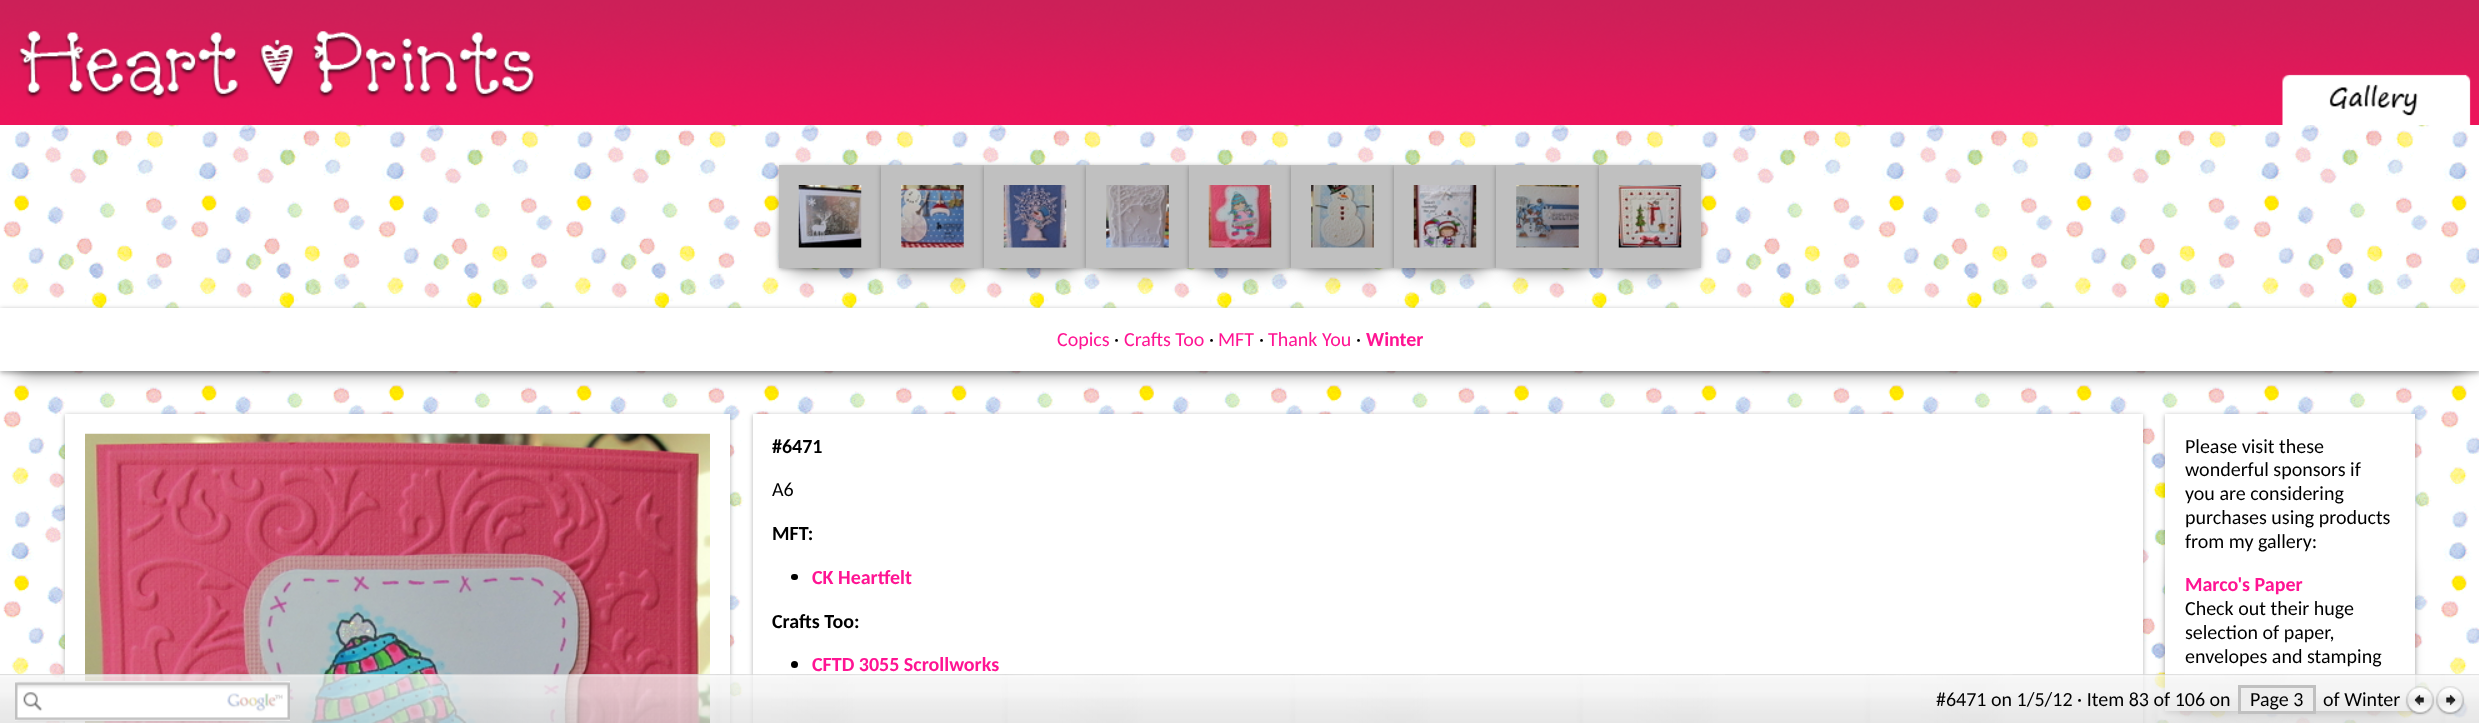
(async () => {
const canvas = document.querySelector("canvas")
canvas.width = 2479
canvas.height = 723
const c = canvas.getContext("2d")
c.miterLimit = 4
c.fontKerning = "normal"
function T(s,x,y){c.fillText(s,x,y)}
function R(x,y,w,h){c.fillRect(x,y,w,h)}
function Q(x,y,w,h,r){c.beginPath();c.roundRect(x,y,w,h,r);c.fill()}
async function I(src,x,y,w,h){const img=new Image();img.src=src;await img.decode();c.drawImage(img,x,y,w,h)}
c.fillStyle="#fff"
R(0,0,2479,723)
await I("1.png",3,125,2476,598)
await I("2.png",0,0,2479,125)
await I("3.png",18,31,517,69)
await I("4.png",2282,74,189,51)
c.fillStyle="#0000004d"
c.filter="blur(2.5px)"
c.beginPath()
c.rect(779,166,102,103)
c.fill()
c.filter="none"
c.fillStyle="#00000099"
c.filter="blur(9.5px)"
c.beginPath()
c.roundRect(791,216,78,52,4)
c.fill()
c.filter="none"
c.filter="blur(9.5px)"
c.beginPath()
c.roundRect(894,216,77,52,4)
c.fill()
c.filter="none"
c.fillStyle="#c0c0c0"
R(779,165,102,103)
await I("5.png",798,185,64,63)
c.fillStyle="#0000004d"
c.filter="blur(2.5px)"
c.beginPath()
c.rect(881,166,103,103)
c.fill()
c.filter="none"
c.fillStyle="#00000099"
c.filter="blur(9.5px)"
c.beginPath()
c.roundRect(996,216,78,52,4)
c.fill()
c.filter="none"
c.fillStyle="#c0c0c0"
R(881,165,103,103)
await I("6.png",901,185,63,63)
c.fillStyle="#0000004d"
c.filter="blur(2.5px)"
c.beginPath()
c.rect(984,166,102,103)
c.fill()
c.filter="none"
c.fillStyle="#00000099"
c.filter="blur(9.5px)"
c.beginPath()
c.roundRect(1099,216,77,52,4)
c.fill()
c.filter="none"
c.fillStyle="#c0c0c0"
R(984,165,102,103)
await I("7.png",1003,185,64,63)
c.fillStyle="#0000004d"
c.filter="blur(2.5px)"
c.beginPath()
c.rect(1086,166,103,103)
c.fill()
c.filter="none"
c.fillStyle="#00000099"
c.filter="blur(9.5px)"
c.beginPath()
c.roundRect(1201,216,78,52,4)
c.fill()
c.filter="none"
c.fillStyle="#c0c0c0"
R(1086,165,103,103)
await I("8.png",1106,185,63,63)
c.fillStyle="#0000004d"
c.filter="blur(2.5px)"
c.beginPath()
c.rect(1189,166,102,103)
c.fill()
c.filter="none"
c.fillStyle="#00000099"
c.filter="blur(9.5px)"
c.beginPath()
c.roundRect(1304,216,77,52,4)
c.fill()
c.filter="none"
c.fillStyle="#c0c0c0"
R(1189,165,102,103)
await I("9.png",1208,185,64,63)
c.fillStyle="#0000004d"
c.filter="blur(2.5px)"
c.beginPath()
c.rect(1291,166,103,103)
c.fill()
c.filter="none"
c.fillStyle="#00000099"
c.filter="blur(9.5px)"
c.beginPath()
c.roundRect(1406,216,78,52,4)
c.fill()
c.filter="none"
c.fillStyle="#c0c0c0"
R(1291,165,103,103)
await I("10.png",1311,185,63,63)
c.fillStyle="#0000004d"
c.filter="blur(2.5px)"
c.beginPath()
c.rect(1394,166,102,103)
c.fill()
c.filter="none"
c.fillStyle="#00000099"
c.filter="blur(9.5px)"
c.beginPath()
c.roundRect(1509,216,77,52,4)
c.fill()
c.filter="none"
c.fillStyle="#c0c0c0"
R(1394,165,102,103)
await I("11.png",1413,185,64,63)
c.fillStyle="#0000004d"
c.filter="blur(2.5px)"
c.beginPath()
c.rect(1496,166,103,103)
c.fill()
c.filter="none"
c.fillStyle="#00000099"
c.filter="blur(9.5px)"
c.beginPath()
c.roundRect(1611,216,78,52,4)
c.fill()
c.filter="none"
c.fillStyle="#c0c0c0"
R(1496,165,103,103)
await I("12.png",1516,185,63,63)
c.fillStyle="#0000004d"
c.filter="blur(2.5px)"
c.beginPath()
c.rect(1599,166,102,103)
c.fill()
c.filter="none"
c.fillStyle="#c0c0c0"
R(1599,165,102,103)
await I("13.png",1618,185,64,63)
c.fillStyle="#0000004d"
c.filter="blur(2.5px)"
c.beginPath()
c.rect(0,309,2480,64)
c.fill()
c.filter="none"
c.fillStyle="#00000099"
c.filter="blur(9.5px)"
c.beginPath()
c.roundRect(13,340,2455,31,13)
c.fill()
c.filter="none"
c.fillStyle="#fff"
R(0,308,2479,63)
c.font="20px Carlito"
c.fillStyle="#ff1493"
T("Copics",1057,346)
c.fillStyle="#000"
T("·",1114,346)
c.fillStyle="#ff1493"
T("Crafts Too",1124,346)
c.fillStyle="#000"
T("·",1209,346)
c.fillStyle="#ff1493"
T("MFT",1218,346)
c.fillStyle="#000"
T("·",1259,346)
c.fillStyle="#ff1493"
T("Thank You",1268,346)
c.fillStyle="#000"
T("·",1356,346)
c.font="bold 20px Carlito"
c.fillStyle="#ff1493"
T("Winter",1366,346)
c.fillStyle="#0000004d"
c.filter="blur(2.5px)"
c.beginPath()
c.rect(65,415,665,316)
c.fill()
c.filter="none"
c.fillStyle="#fff"
R(65,414,665,309)
await I("14.png",85,433,625,290)
c.fillStyle="#0000004d"
c.filter="blur(2.5px)"
c.beginPath()
c.rect(753,415,1390,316)
c.fill()
c.filter="none"
c.fillStyle="#fff"
R(753,414,1390,309)
c.fillStyle="#000"
T("#6471",772,453)
c.font="20px Carlito"
T("A6",772,496)
c.font="bold 20px Carlito"
T("MFT:",772,540)
Q(791,574,7,6,3)
c.fillStyle="#ff1493"
T("CK Heartfelt",812,584)
c.fillStyle="#000"
T("Crafts Too:",772,628)
c.beginPath()
c.arc(794.5,664.5,3.5,0,7)
c.fill()
c.fillStyle="#ff1493"
T("CFTD 3055 Scrollworks",812,671)
c.fillStyle="#0000004d"
c.filter="blur(2.5px)"
c.beginPath()
c.rect(2165,415,250,298)
c.fill()
c.filter="none"
c.fillStyle="#00000099"
c.filter="blur(9.5px)"
c.beginPath()
c.roundRect(2178,563,225,148,11)
c.fill()
c.filter="none"
c.fillStyle="#fff"
R(2165,414,250,297)
c.font="20px Carlito"
c.fillStyle="#000"
T("Please visit these",2185,453)
T("wonderful sponsors if",2185,476)
T("you are considering",2185,500)
T("purchases using products",2185,524)
T("from my gallery:",2185,548)
c.font="bold 20px Carlito"
c.fillStyle="#ff1493"
T("Marco's Paper",2185,591)
c.font="20px Carlito"
c.fillStyle="#000"
T("Check out their huge",2185,615)
T("selection of paper,",2185,639)
T("envelopes and stamping",2185,663)
await I("15.png",0,674,2479,49)
c.fillStyle="#fff"
R(15,681,275,40)
await I("16.png",15,681,275,41)
c.fillStyle="#000"
T("#6471 on 1/5/12 · Item 83 of 106 on",1936,706)
c.fillStyle="#eee"
c.beginPath()
c.rect(2239.5,686.5,75,26)
c.fill()
c.strokeStyle="#c0c0c0"
c.lineWidth=3
c.stroke()
c.fillStyle="#000"
T("Page 3",2250,706)
T("of Winter",2323,706)
await I("17.png",2405,686,30,30)
await I("18.png",2435,686,30,30)
})()
